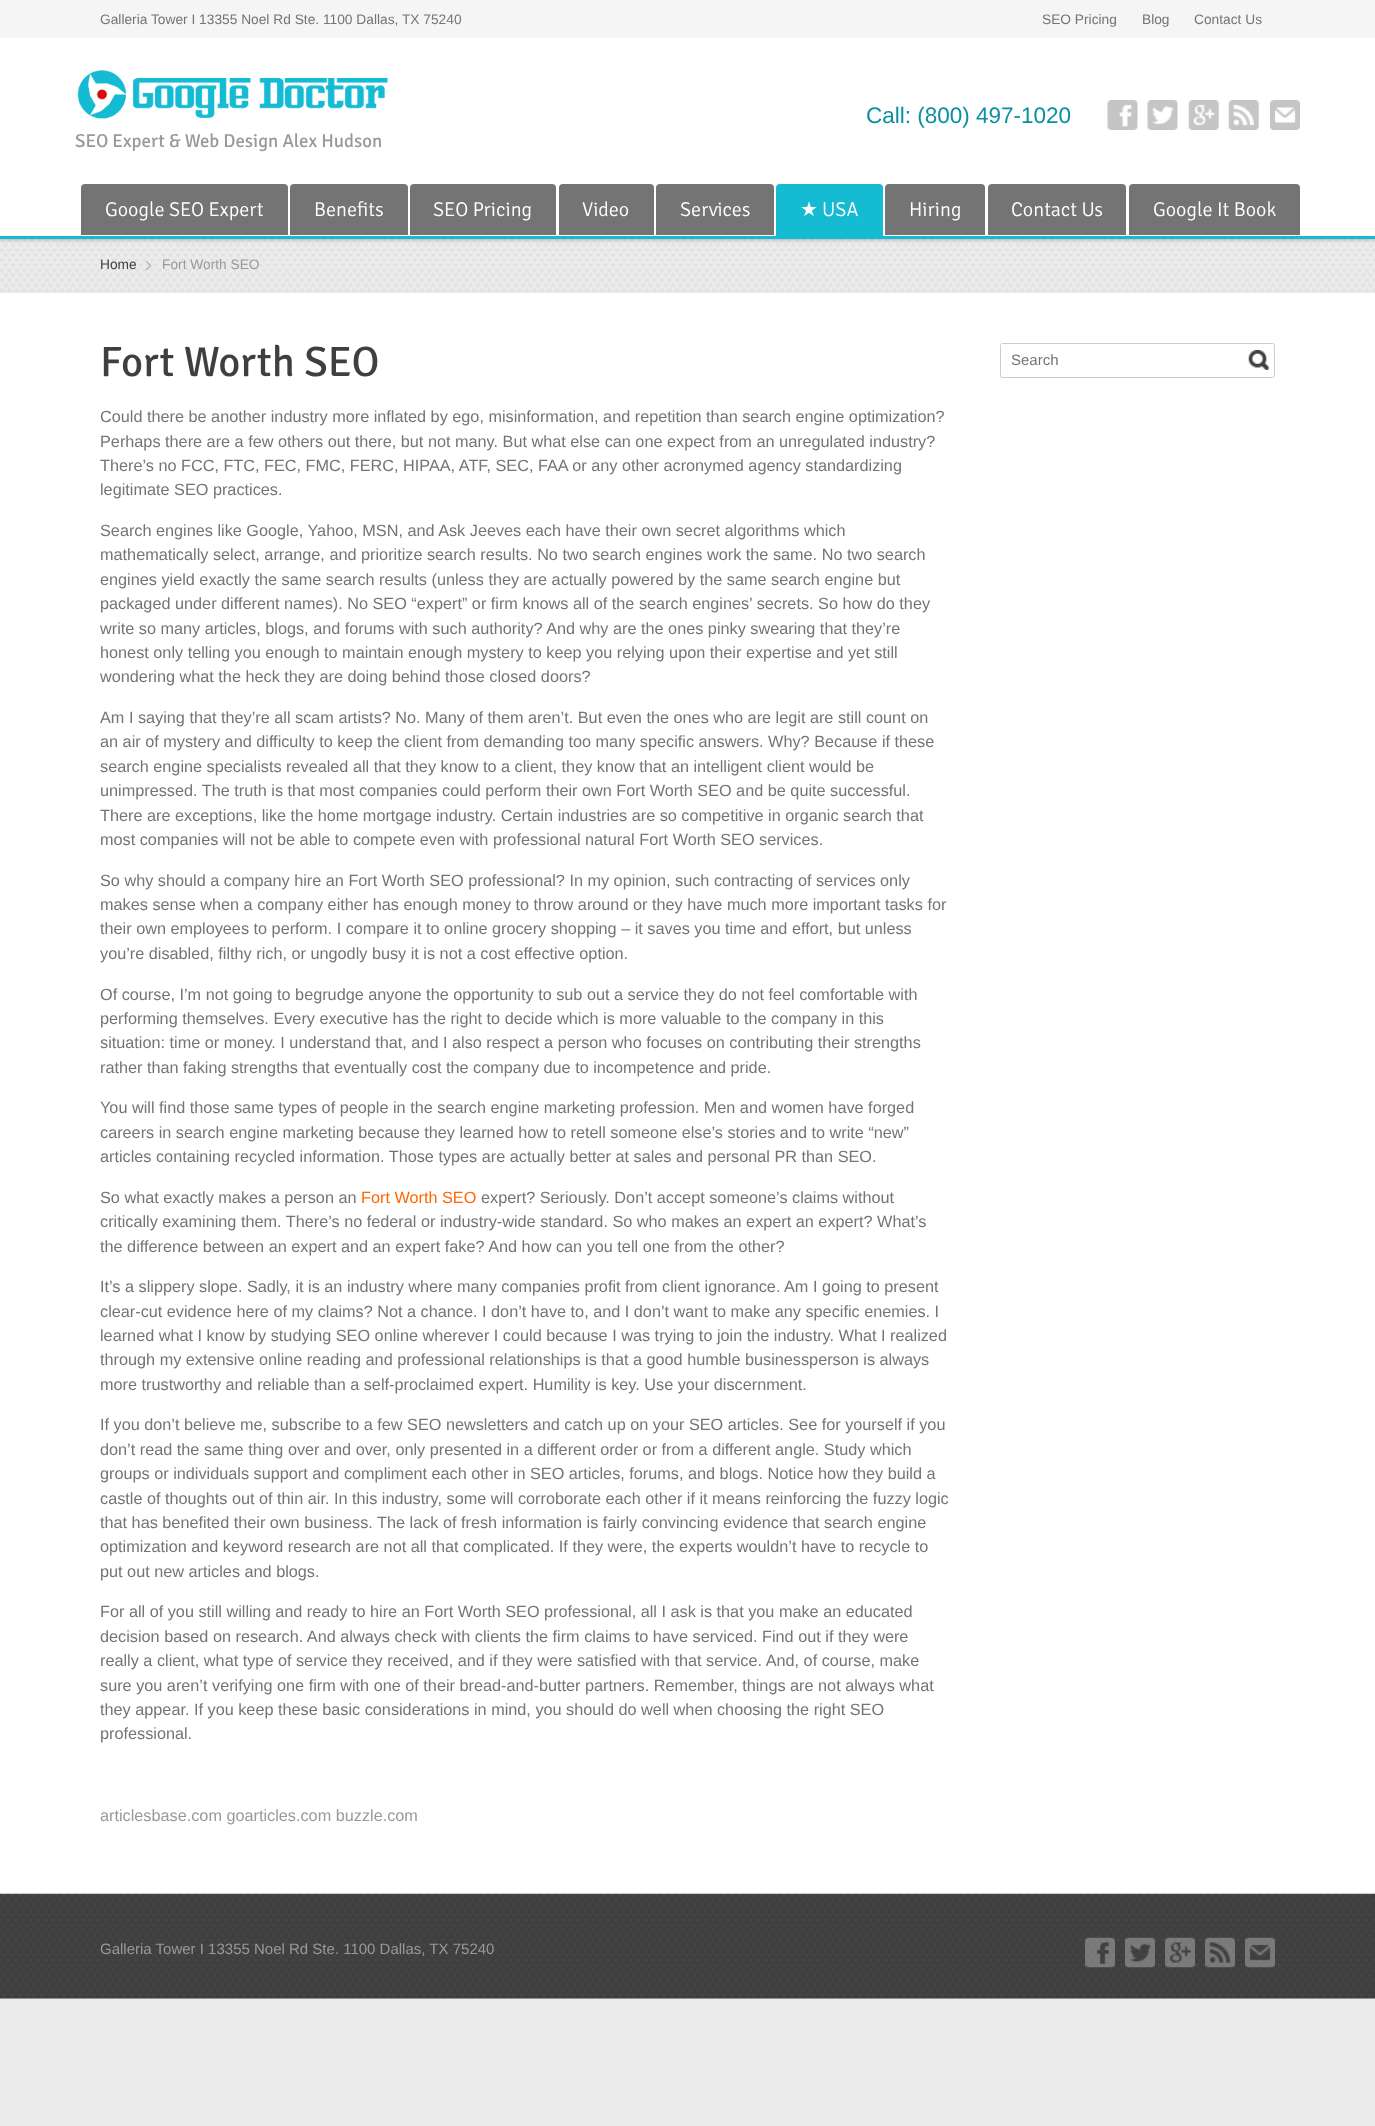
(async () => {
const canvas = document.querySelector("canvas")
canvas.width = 1375
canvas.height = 2126
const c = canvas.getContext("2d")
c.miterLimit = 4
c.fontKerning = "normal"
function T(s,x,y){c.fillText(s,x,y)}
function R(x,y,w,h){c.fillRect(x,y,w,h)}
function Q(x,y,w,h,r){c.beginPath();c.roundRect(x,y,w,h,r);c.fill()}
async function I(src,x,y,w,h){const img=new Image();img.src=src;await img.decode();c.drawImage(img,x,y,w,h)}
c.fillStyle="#ececec"
R(0,0,1375,2126)
c.fillStyle="#fff"
R(0,38,1375,1961)
c.fillStyle="#ececec"
R(0,239,1375,54)
await I("7.png",0,239,1375,52)
c.save()
c.beginPath()
c.rect(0,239,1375,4)
c.clip()
c.fillStyle="#0000004d"
c.filter="blur(2.5px)"
c.beginPath()
c.rect(0,0,1375,239)
c.fill()
c.filter="none"
c.restore()
c.fillStyle="#15bad3"
R(0,236,1375,3)
c.fillStyle="#f5f5f5"
R(0,0,1375,38)
c.font="13.75px Liberation Sans"
c.fillStyle="#747474"
T("Galleria Tower I 13355 Noel Rd Ste. 1100 Dallas, TX 75240",100,24)
T("SEO Pricing",1042,24)
T("Blog",1142,24)
T("Contact Us",1194,24)
c.font="22.5px Liberation Sans"
c.fillStyle="#0a8fa3"
T("Call: (800) 497-1020",866,123)
await I("1.png",1107,100,31,30)
await I("2.png",1147,100,31,30)
await I("3.png",1188,100,31,30)
await I("4.png",1228,100,31,30)
await I("5.png",1270,100,30,30)
await I("6.png",77,70,311,49)
c.font="18.75px Signika"
c.fillStyle="#999"
T("SEO Expert & Web Design Alex Hudson",75,147)
c.fillStyle="#747474"
c.beginPath()
c.roundRect(81,184,207,52,[4,4,0,0])
c.fill()
c.fillStyle="#fff"
R(81,235,207,1)
c.font="300 20px Signika"
T("Google SEO Expert",105,216)
c.fillStyle="#747474"
c.beginPath()
c.roundRect(290,184,118,52,[4,4,0,0])
c.fill()
c.fillStyle="#fff"
R(290,235,118,1)
T("Benefits",314,216)
c.fillStyle="#747474"
c.beginPath()
c.roundRect(410,184,146,52,[4,4,0,0])
c.fill()
c.fillStyle="#fff"
R(410,235,146,1)
T("SEO Pricing",433,216)
c.fillStyle="#747474"
c.beginPath()
c.roundRect(559,184,95,52,[4,4,0,0])
c.fill()
c.fillStyle="#fff"
R(559,235,95,1)
T("Video",582,216)
c.fillStyle="#747474"
c.beginPath()
c.roundRect(656,184,118,52,[4,4,0,0])
c.fill()
c.fillStyle="#fff"
R(656,235,118,1)
T("Services",680,216)
c.fillStyle="#15bad3"
c.beginPath()
c.roundRect(776,184,107,52,[4,4,0,0])
c.fill()
c.font="20px DejaVu Sans"
c.fillStyle="#fff"
T("★",800,216)
c.font="300 20px Signika"
T("USA",822,216)
c.fillStyle="#747474"
c.beginPath()
c.roundRect(885,184,100,52,[4,4,0,0])
c.fill()
c.fillStyle="#fff"
R(885,235,100,1)
T("Hiring",909,216)
c.fillStyle="#747474"
c.beginPath()
c.roundRect(988,184,138,52,[4,4,0,0])
c.fill()
c.fillStyle="#fff"
R(988,235,138,1)
T("Contact Us",1011,216)
c.fillStyle="#747474"
c.beginPath()
c.roundRect(1129,184,171,52,[4,4,0,0])
c.fill()
c.fillStyle="#fff"
R(1129,235,171,1)
T("Google It Book",1153,216)
c.fillStyle="#e6e6e6"
R(0,291,1375,1)
c.font="13.75px Liberation Sans"
c.fillStyle="#3f3f3f"
T("Home",100,269)
await I("8.png",146,261,6,9)
c.fillStyle="#999"
T("Fort Worth SEO",162,269)
c.font="42.5px Signika"
c.fillStyle="#3f3f3f"
T("Fort Worth SEO",100,376)
c.font="16.25px Liberation Sans"
c.fillStyle="#747474"
T("Could there be another industry more inflated by ego, misinformation, and repetition than search engine optimization?",100,422)
T("Perhaps there are a few others out there, but not many. But what else can one expect from an unregulated industry?",100,447)
T("There’s no FCC, FTC, FEC, FMC, FERC, HIPAA, ATF, SEC, FAA or any other acronymed agency standardizing",100,471)
T("legitimate SEO practices.",100,495)
T("Search engines like Google, Yahoo, MSN, and Ask Jeeves each have their own secret algorithms which",100,536)
T("mathematically select, arrange, and prioritize search results. No two search engines work the same. No two search",100,560)
T("engines yield exactly the same search results (unless they are actually powered by the same search engine but",100,585)
T("packaged under different names). No SEO “expert” or firm knows all of the search engines’ secrets. So how do they",100,609)
T("write so many articles, blogs, and forums with such authority? And why are the ones pinky swearing that they’re",100,634)
T("honest only telling you enough to maintain enough mystery to keep you relying upon their expertise and yet still",100,658)
T("wondering what the heck they are doing behind those closed doors?",100,682)
T("Am I saying that they’re all scam artists? No. Many of them aren’t. But even the ones who are legit are still count on",100,723)
T("an air of mystery and difficulty to keep the client from demanding too many specific answers. Why? Because if these",100,747)
T("search engine specialists revealed all that they know to a client, they know that an intelligent client would be",100,772)
T("unimpressed. The truth is that most companies could perform their own Fort Worth SEO and be quite successful.",100,796)
T("There are exceptions, like the home mortgage industry. Certain industries are so competitive in organic search that",100,821)
T("most companies will not be able to compete even with professional natural Fort Worth SEO services.",100,845)
T("So why should a company hire an Fort Worth SEO professional? In my opinion, such contracting of services only",100,886)
T("makes sense when a company either has enough money to throw around or they have much more important tasks for",100,910)
T("their own employees to perform. I compare it to online grocery shopping – it saves you time and effort, but unless",100,934)
T("you’re disabled, filthy rich, or ungodly busy it is not a cost effective option.",100,959)
T("Of course, I’m not going to begrudge anyone the opportunity to sub out a service they do not feel comfortable with",100,1000)
T("performing themselves. Every executive has the right to decide which is more valuable to the company in this",100,1024)
T("situation: time or money. I understand that, and I also respect a person who focuses on contributing their strengths",100,1048)
T("rather than faking strengths that eventually cost the company due to incompetence and pride.",100,1073)
T("You will find those same types of people in the search engine marketing profession. Men and women have forged",100,1113)
T("careers in search engine marketing because they learned how to retell someone else’s stories and to write “new”",100,1138)
T("articles containing recycled information. Those types are actually better at sales and personal PR than SEO.",100,1162)
T("So what exactly makes a person an",100,1203)
c.fillStyle="#f60"
T("Fort Worth SEO",361,1203)
c.fillStyle="#747474"
T("expert? Seriously. Don’t accept someone’s claims without",481,1203)
T("critically examining them. There’s no federal or industry-wide standard. So who makes an expert an expert? What’s",100,1227)
T("the difference between an expert and an expert fake? And how can you tell one from the other?",100,1252)
T("It’s a slippery slope. Sadly, it is an industry where many companies profit from client ignorance. Am I going to present",100,1292)
T("clear-cut evidence here of my claims? Not a chance. I don’t have to, and I don’t want to make any specific enemies. I",100,1317)
T("learned what I know by studying SEO online wherever I could because I was trying to join the industry. What I realized",100,1341)
T("through my extensive online reading and professional relationships is that a good humble businessperson is always",100,1365)
T("more trustworthy and reliable than a self-proclaimed expert. Humility is key. Use your discernment.",100,1390)
T("If you don’t believe me, subscribe to a few SEO newsletters and catch up on your SEO articles. See for yourself if you",100,1430)
T("don’t read the same thing over and over, only presented in a different order or from a different angle. Study which",100,1455)
T("groups or individuals support and compliment each other in SEO articles, forums, and blogs. Notice how they build a",100,1479)
T("castle of thoughts out of thin air. In this industry, some will corroborate each other if it means reinforcing the fuzzy logic",100,1504)
T("that has benefited their own business. The lack of fresh information is fairly convincing evidence that search engine",100,1528)
T("optimization and keyword research are not all that complicated. If they were, the experts wouldn’t have to recycle to",100,1552)
T("put out new articles and blogs.",100,1577)
T("For all of you still willing and ready to hire an Fort Worth SEO professional, all I ask is that you make an educated",100,1617)
T("decision based on research. And always check with clients the firm claims to have serviced. Find out if they were",100,1642)
T("really a client, what type of service they received, and if they were satisfied with that service. And, of course, make",100,1666)
T("sure you aren’t verifying one firm with one of their bread-and-butter partners. Remember, things are not always what",100,1691)
T("they appear. If you keep these basic considerations in mind, you should do well when choosing the right SEO",100,1715)
T("professional.",100,1739)
c.fillStyle="#999"
T("articlesbase.com goarticles.com buzzle.com",100,1821)
c.beginPath()
c.roundRect(1000.5,343.5,274,34,2)
c.strokeStyle="#ccc"
c.stroke()
c.fillStyle="#fff"
Q(1001,344,273,32,1)
c.font="15px Liberation Sans"
c.fillStyle="#747474"
T("Search",1011,365)
await I("9.png",1248,350,21,20)
await I("10.png",0,1893,1375,106)
c.fillStyle="#999"
T("Galleria Tower I 13355 Noel Rd Ste. 1100 Dallas, TX 75240",100,1954)
await I("11.png",1085,1937,30,31)
await I("12.png",1125,1937,30,31)
await I("13.png",1165,1937,30,31)
await I("14.png",1205,1937,30,31)
await I("15.png",1245,1937,30,31)
})()
